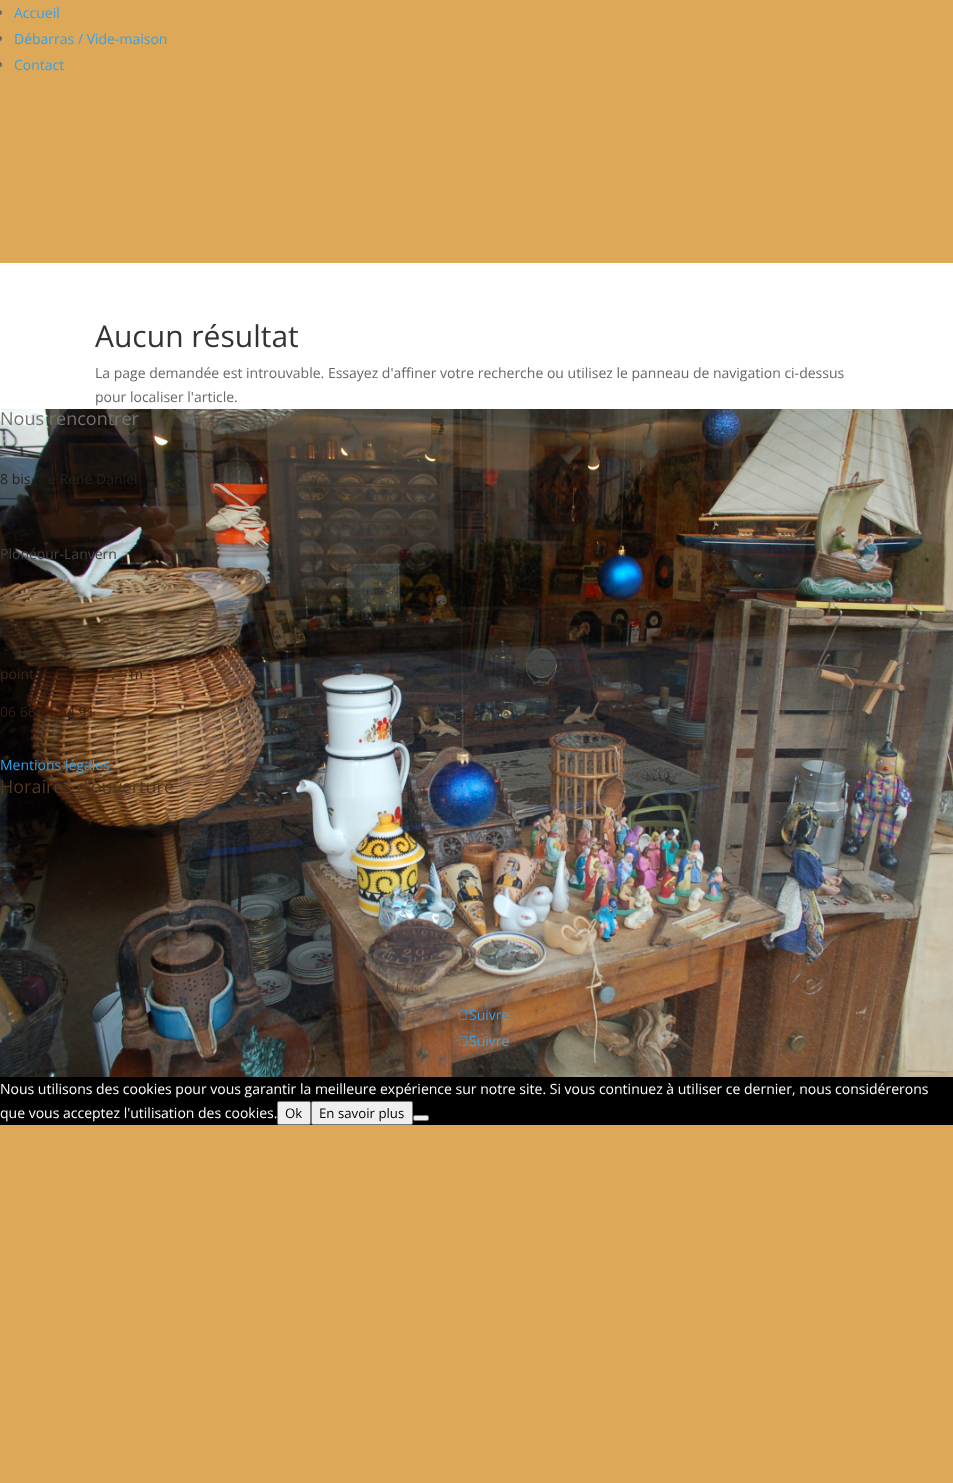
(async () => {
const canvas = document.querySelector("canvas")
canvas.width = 953
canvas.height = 1483
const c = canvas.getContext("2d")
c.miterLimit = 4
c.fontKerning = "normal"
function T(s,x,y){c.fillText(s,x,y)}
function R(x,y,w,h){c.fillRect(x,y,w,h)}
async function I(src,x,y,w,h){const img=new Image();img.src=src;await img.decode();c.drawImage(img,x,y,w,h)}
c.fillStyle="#dda858"
R(0,0,953,1483)
c.fillStyle="#666"
c.beginPath()
c.arc(-.5,12.5,2.5,0,7)
c.fill()
c.font="14px Open Sans"
c.fillStyle="#2ea3f2"
T("Accueil",14,18)
c.fillStyle="#666"
c.beginPath()
c.arc(-.5,38.5,2.5,0,7)
c.fill()
c.fillStyle="#2ea3f2"
T("Débarras / Vide-maison",14,44)
c.fillStyle="#666"
c.beginPath()
c.arc(-.5,64.5,2.5,0,7)
c.fill()
c.fillStyle="#2ea3f2"
T("Contact",14,70)
c.fillStyle="#fff"
R(0,263,953,146)
c.font="30px Open Sans"
c.fillStyle="#333"
T("Aucun résultat",95,347)
c.font="14px Open Sans"
c.fillStyle="#666"
T("La page demandée est introuvable. Essayez d'affiner votre recherche ou utilisez le panneau de navigation ci-dessus",95,378)
T("pour localiser l'article.",95,402)
await I("1.png",0,409,953,668)
c.font="18px Open Sans"
c.fillStyle="#73726e"
T("Nous rencontrer",0,425)
c.font="14px Open Sans"
c.fillStyle="#222"
T("8 bis",0,484)
T("e René Daniel",48,484)
c.fillStyle="#414040"
T("Plonéour-Lanvern",0,559)
c.fillStyle="#3f2514"
T("point",0,679)
T(".",111,679)
T("m",130,679)
c.fillStyle="#361e0f"
T("06 66 91 54 91",0,717)
c.fillStyle="#2ea3f2"
T("Mentions légales",0,770)
c.font="18px Open Sans"
c.fillStyle="#51361e"
T("Horaires d’ouverture",0,793)
c.fillStyle="#666"
c.beginPath()
c.arc(-.5,1014.5,2.5,0,7)
c.fill()
await I("2.png",459,1010,9,10)
c.font="14px Open Sans"
c.fillStyle="#2ea3f2"
T("Suivre",469,1020)
c.fillStyle="#666"
c.beginPath()
c.arc(-.5,1040.5,2.5,0,7)
c.fill()
await I("3.png",459,1036,9,10)
c.fillStyle="#2ea3f2"
T("Suivre",469,1046)
c.fillStyle="#000"
R(0,1077,953,48)
c.fillStyle="#fff"
T("Nous utilisons des cookies pour vous garantir la meilleure expérience sur notre site. Si vous continuez à utiliser ce dernier, nous considérerons",0,1094)
T("que vous acceptez l'utilisation des cookies.",0,1118)
c.fillStyle="#efefef"
c.beginPath()
c.roundRect(277.5,1101.5,33,23,1.5)
c.fill()
c.strokeStyle="#767676"
c.stroke()
c.font="13.25px Open Sans"
c.fillStyle="#000"
T("Ok",285,1118)
c.fillStyle="#efefef"
c.beginPath()
c.roundRect(311.5,1101.5,101,23,1.5)
c.fill()
c.stroke()
c.fillStyle="#000"
T("En savoir plus",319,1118)
c.fillStyle="#efefef"
c.beginPath()
c.roundRect(413.5,1115.5,15,5,1.5)
c.fill()
c.stroke()
})()
